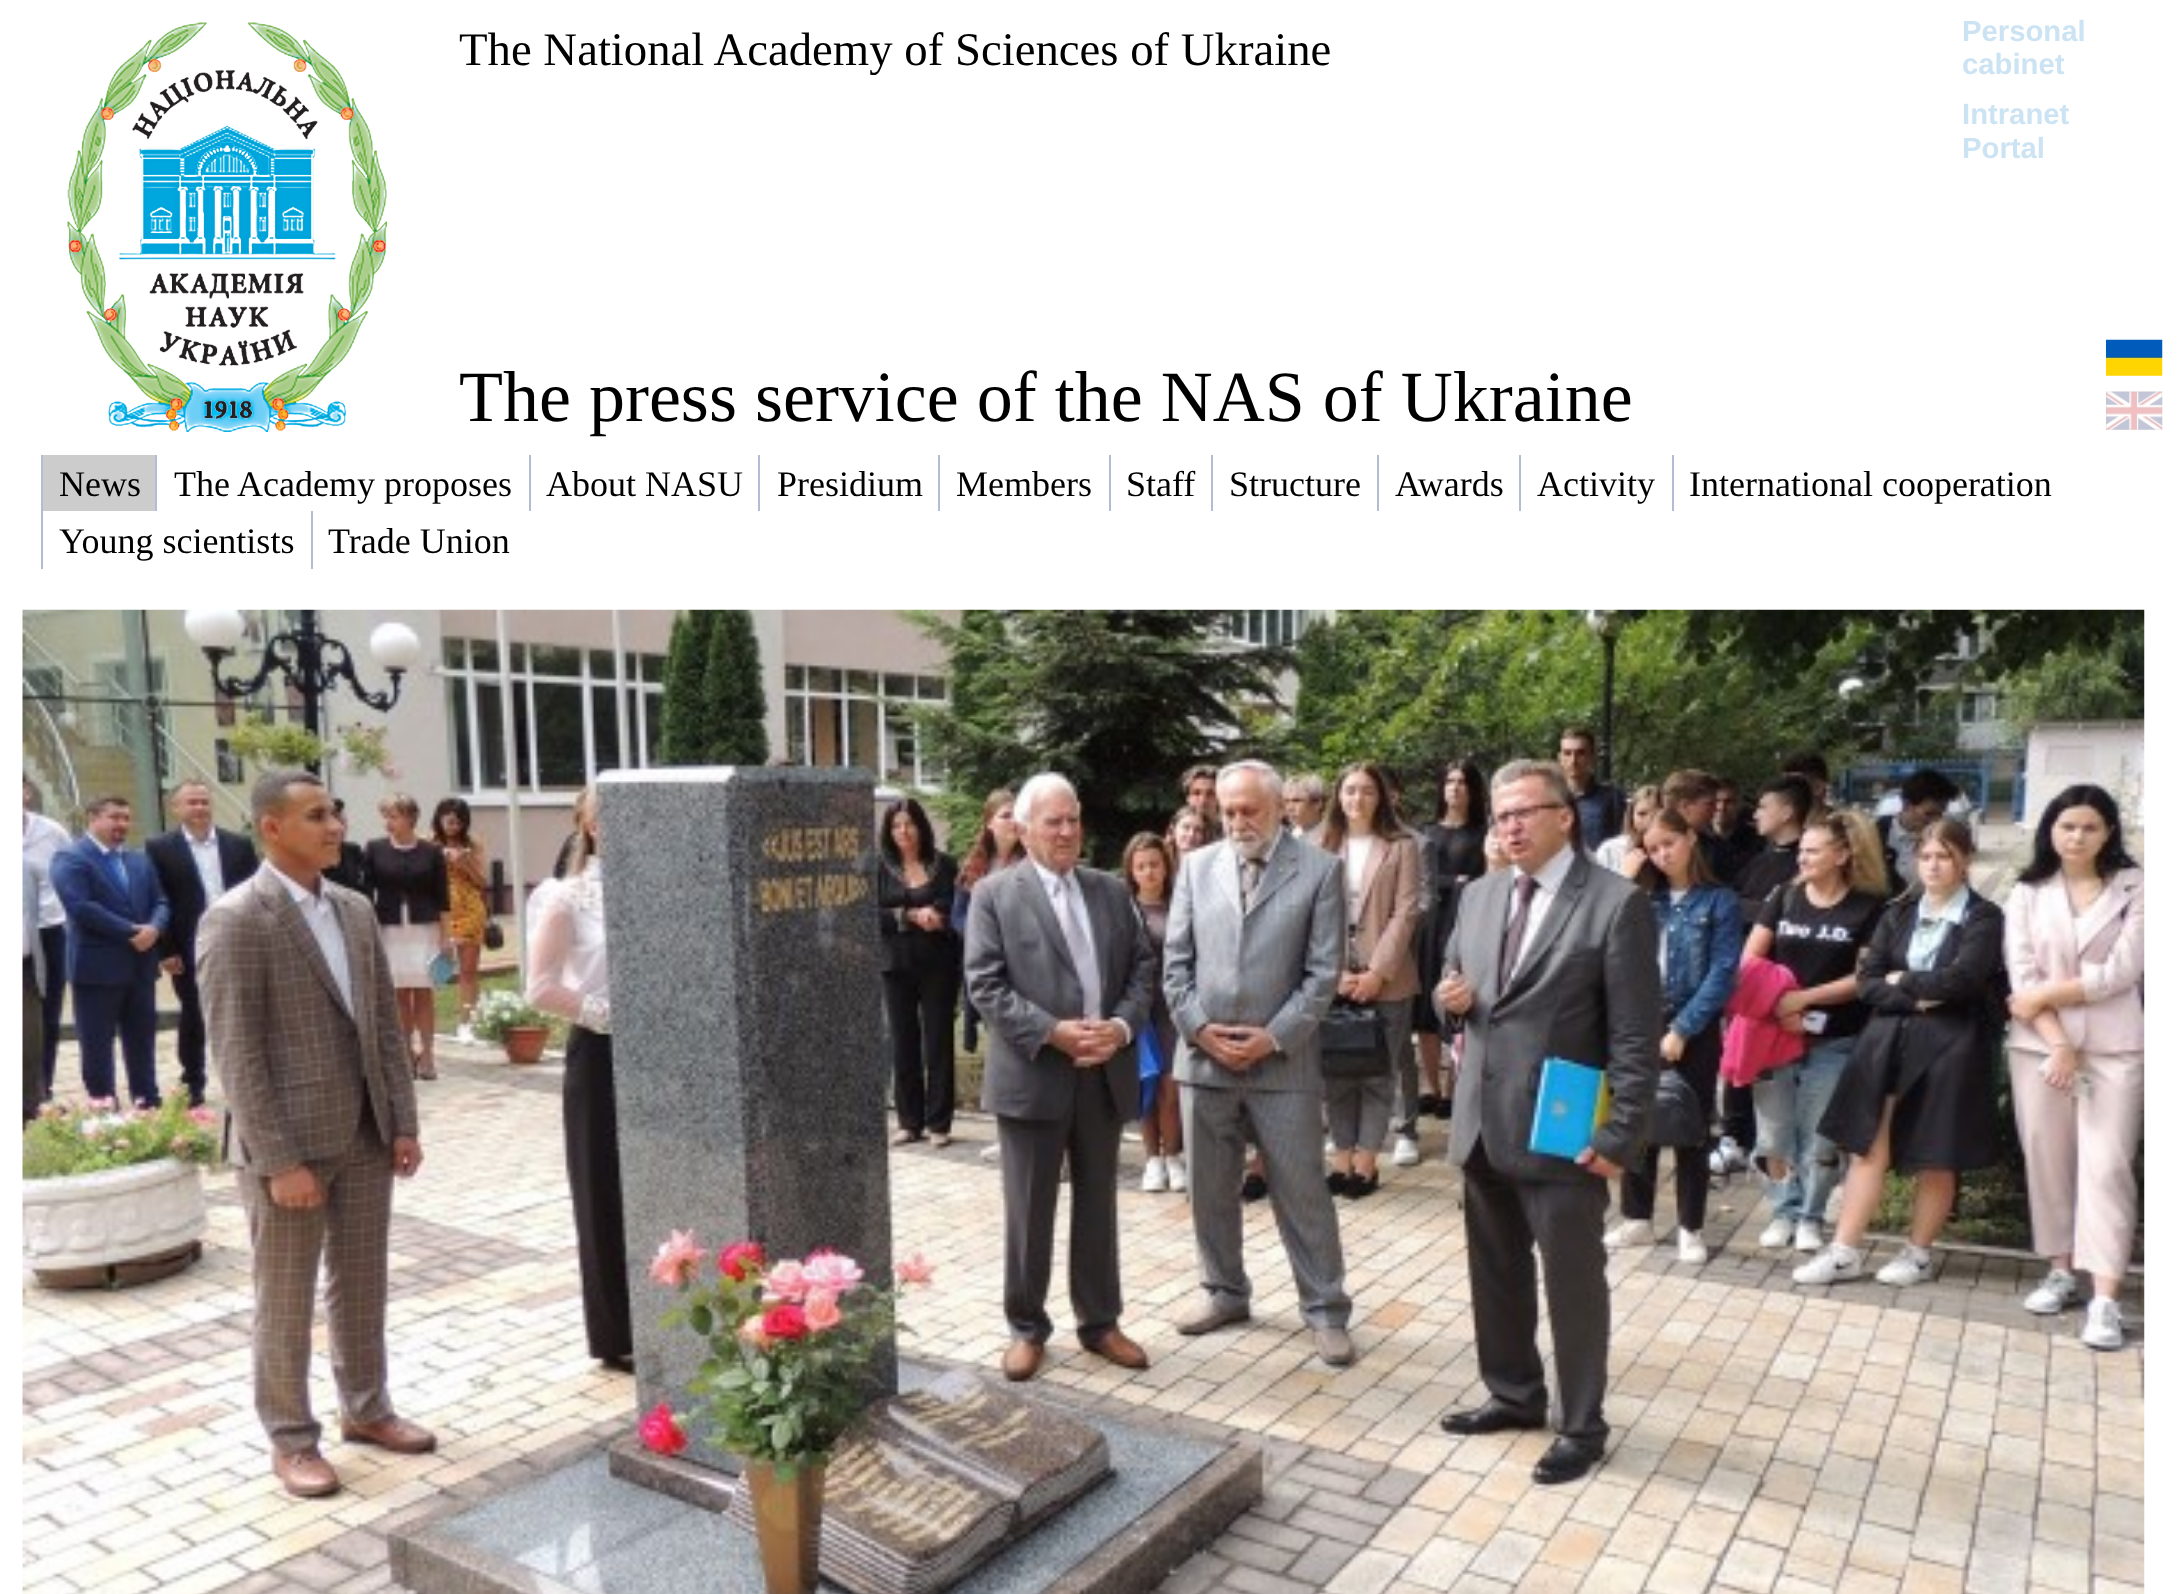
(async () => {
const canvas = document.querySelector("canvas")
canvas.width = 2181
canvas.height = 1594
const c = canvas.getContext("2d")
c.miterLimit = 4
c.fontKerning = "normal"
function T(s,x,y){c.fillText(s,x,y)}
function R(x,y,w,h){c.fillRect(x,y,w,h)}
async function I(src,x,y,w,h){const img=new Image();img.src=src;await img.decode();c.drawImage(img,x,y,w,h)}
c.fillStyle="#fff"
R(0,0,2181,1594)
await I("1.png",67,22,320,410)
c.font="46.75px Liberation Serif"
c.fillStyle="#000"
T("The National Academy of Sciences of Ukraine",459,65)
c.font="bold 29.25px Liberation Sans"
c.fillStyle="#cce3f4"
T("Personal",1962,41)
T("cabinet",1962,74)
T("Intranet",1962,124)
T("Portal",1962,158)
c.font="72px Liberation Serif"
c.fillStyle="#000"
T("The press service of the NAS of Ukraine",459,421)
await I("2.png",2106,339,57,37)
await I("3.png",2106,391,57,39)
c.fillStyle="#ccc"
R(43,455,112,56)
c.fillStyle="#b2bdd3"
R(41,455,2,114)
c.font="36px Liberation Serif"
c.fillStyle="#000"
T("News",59,496)
c.fillStyle="#b2bdd3"
R(155,455,2,56)
c.fillStyle="#000"
T("The Academy proposes",174,496)
c.fillStyle="#b2bdd3"
R(529,455,2,56)
c.fillStyle="#000"
T("About NASU",546,496)
c.fillStyle="#b2bdd3"
R(758,455,2,56)
c.fillStyle="#000"
T("Presidium",777,496)
c.fillStyle="#b2bdd3"
R(938,455,2,56)
c.fillStyle="#000"
T("Members",956,496)
c.fillStyle="#b2bdd3"
R(1109,455,2,56)
c.fillStyle="#000"
T("Staff",1126,496)
c.fillStyle="#b2bdd3"
R(1211,455,2,56)
c.fillStyle="#000"
T("Structure",1229,496)
c.fillStyle="#b2bdd3"
R(1377,455,2,56)
c.fillStyle="#000"
T("Awards",1395,496)
c.fillStyle="#b2bdd3"
R(1519,455,2,56)
c.fillStyle="#000"
T("Activity",1537,496)
c.fillStyle="#b2bdd3"
R(1672,455,2,56)
c.fillStyle="#000"
T("International cooperation",1689,496)
T("Young scientists",59,553)
c.fillStyle="#b2bdd3"
R(311,511,2,58)
c.fillStyle="#000"
T("Trade Union",328,553)
await I("4.png",22,609,2123,985)
})()
